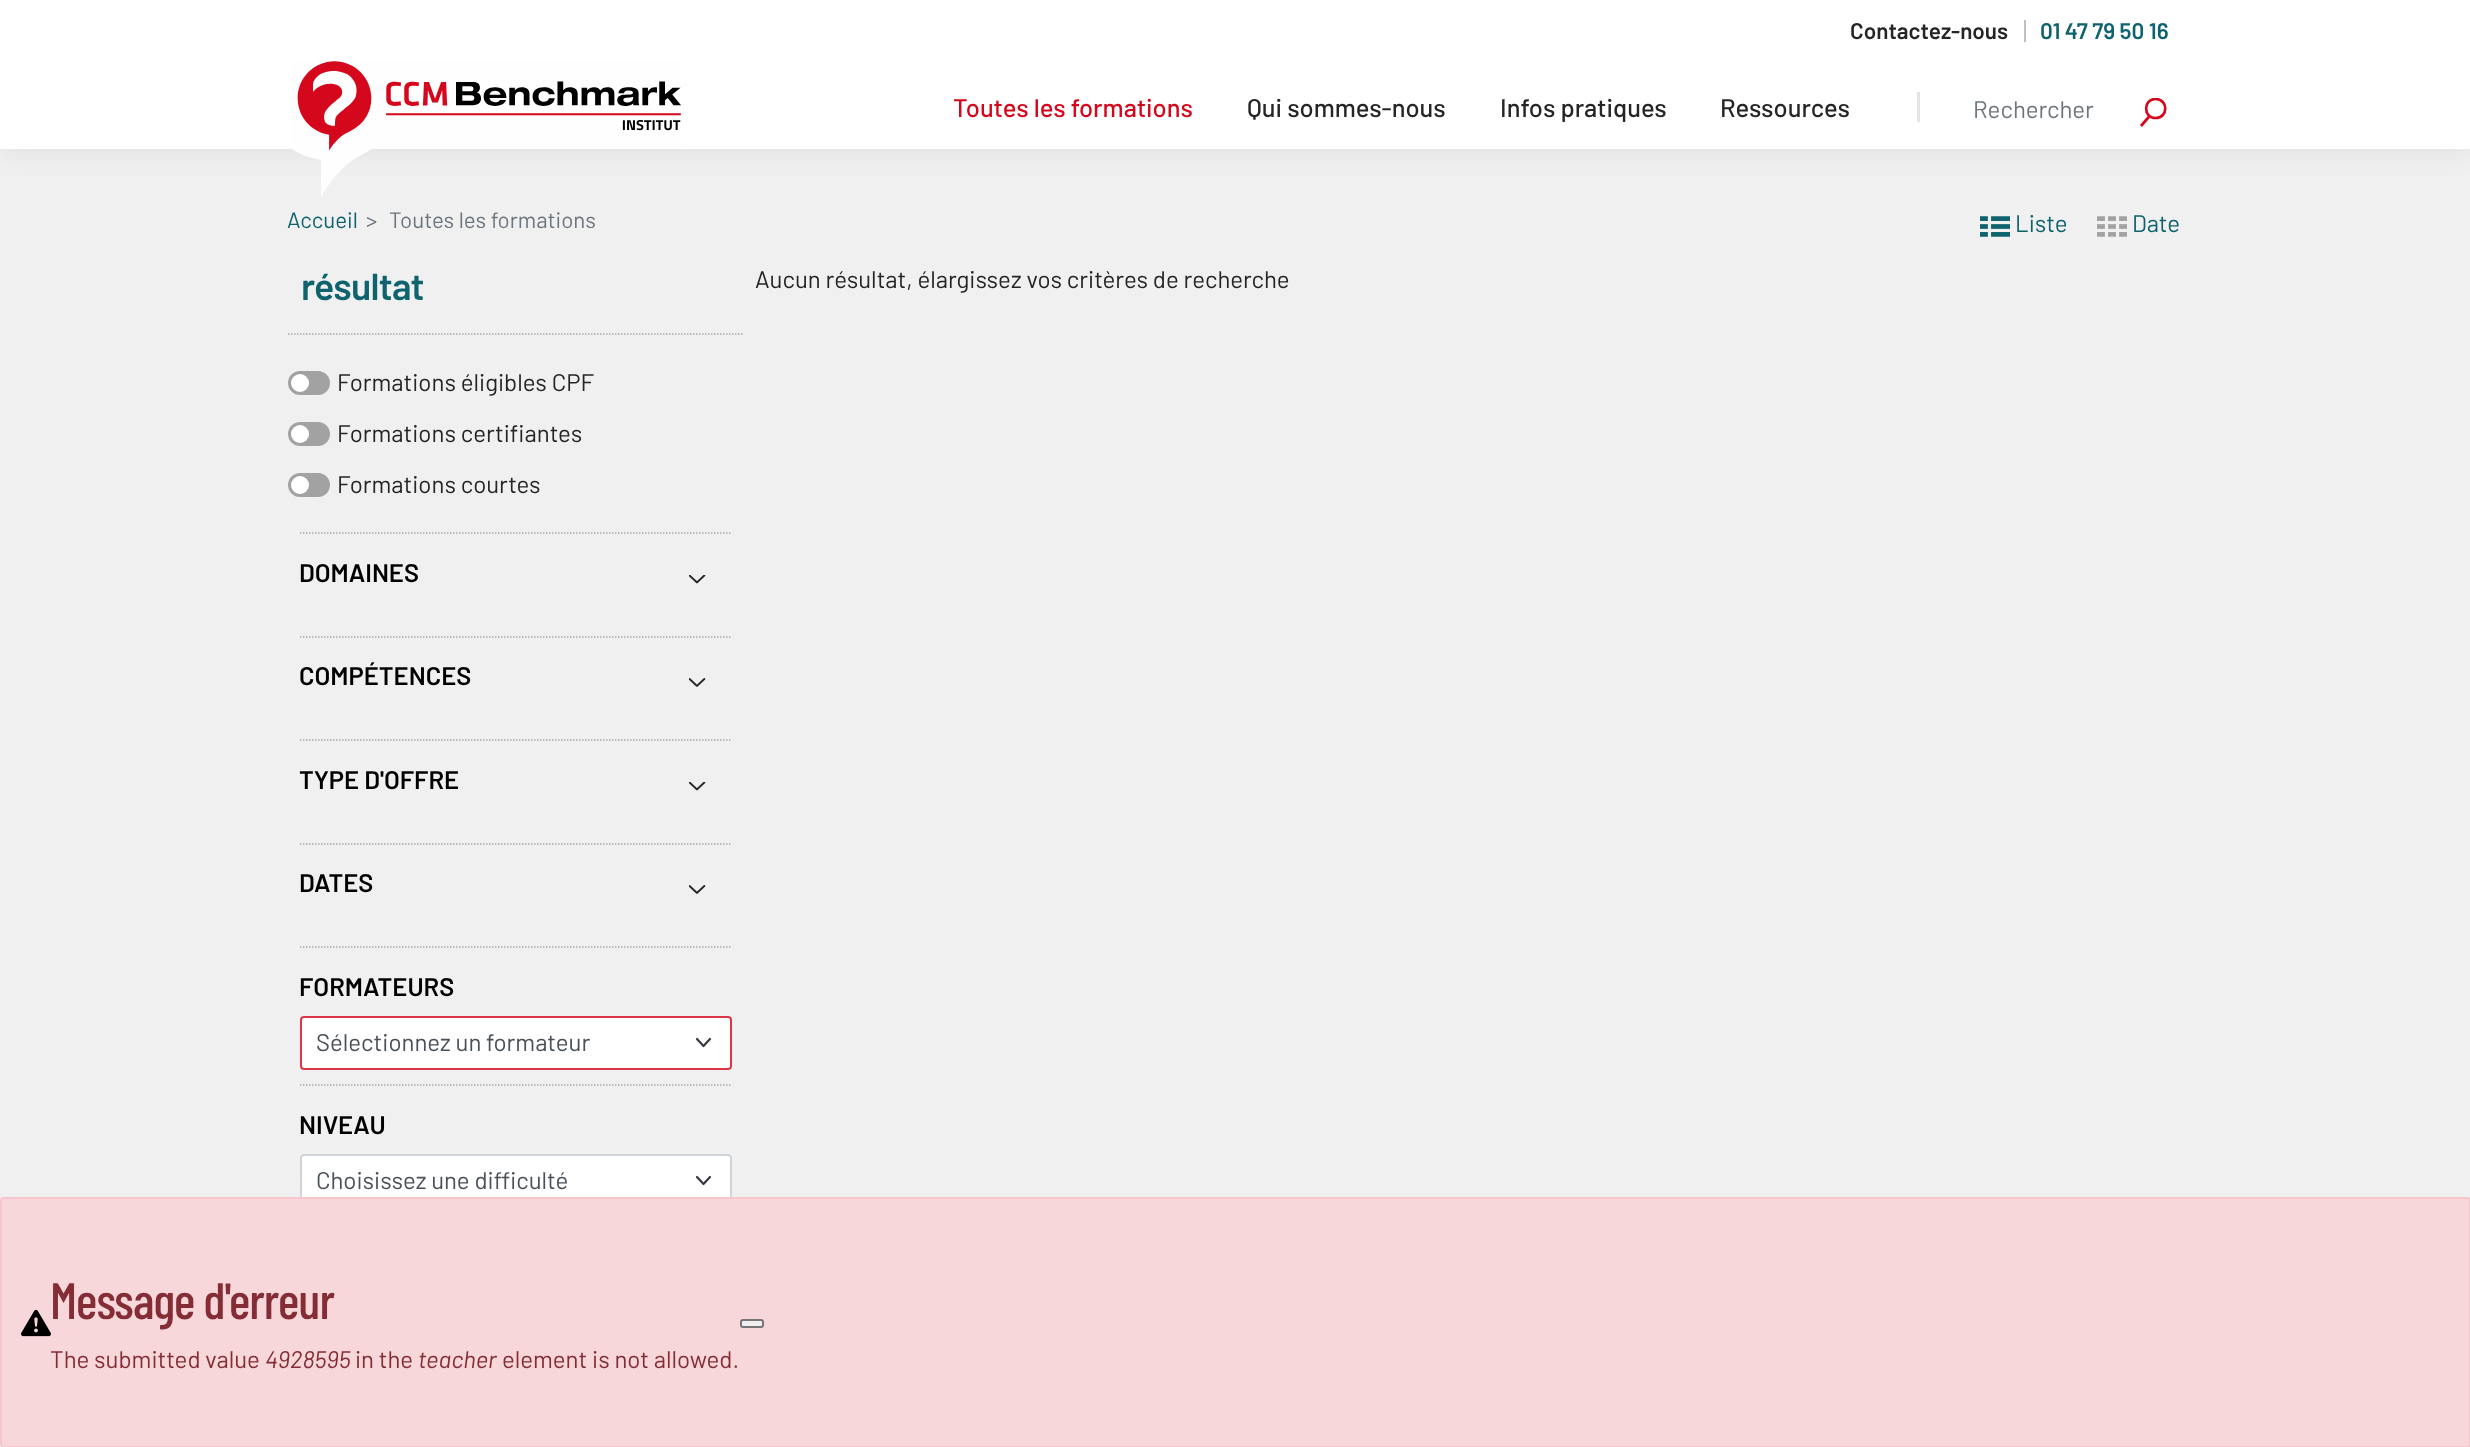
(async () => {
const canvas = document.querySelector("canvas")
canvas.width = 2470
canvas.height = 1447
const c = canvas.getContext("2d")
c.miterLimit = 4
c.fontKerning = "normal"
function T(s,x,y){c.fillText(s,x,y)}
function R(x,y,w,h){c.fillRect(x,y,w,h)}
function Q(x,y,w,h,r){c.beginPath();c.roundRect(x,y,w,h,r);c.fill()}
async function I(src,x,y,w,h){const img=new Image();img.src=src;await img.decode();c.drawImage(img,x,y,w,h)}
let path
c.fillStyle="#f0f0f0"
R(0,0,2470,1447)
c.fillStyle="#00000014"
c.filter="blur(15px)"
c.beginPath()
c.rect(0,-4,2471,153)
c.fill()
c.filter="none"
c.fillStyle="#fff"
R(0,0,2470,149)
c.fillStyle="#c0c0c0"
R(2024,20,2,22)
c.font="600 22.5px Barlow"
c.fillStyle="#252525"
T("Contactez-nous",1850,39)
c.fillStyle="#0f636e"
T("01 47 79 50 16",2040,39)
await I("1.png",292,61,389,136)
c.font="500 25.5px Barlow"
c.fillStyle="#d5071c"
T("Toutes les formations",953,117)
c.fillStyle="#252525"
T("Qui sommes-nous",1247,117)
T("Infos pratiques",1500,117)
T("Ressources",1720,117)
c.fillStyle="#e4e4e4"
R(1917,92,3,30)
c.font="24px Barlow"
c.fillStyle="#6c757d"
T("Rechercher",1973,118)
c.save()
c.beginPath()
c.rect(2139,98,29,30)
c.clip()
path = new Path2D("M2155.5 118c13 0 13-19 0-19c-12.5 0-12.5 19 0 19zm-5.5-2.5l-9 10.5")
c.strokeStyle="#d5071c"
c.lineWidth=2.7
c.stroke(path)
c.restore()
c.font="22.25px Barlow"
c.fillStyle="#0f636e"
T("Accueil",287,228)
c.fillStyle="#6c757d"
T(">",366,228)
T("Toutes les formations",389,228)
await I("2.png",1980,216,30,21)
c.font="24px Barlow"
c.fillStyle="#0f636e"
T("Liste",2015,232)
await I("3.png",2097,216,30,21)
T("Date",2132,232)
path = new Path2D("M288 334h456")
c.strokeStyle="#a9a9a9"
c.lineWidth=1.5
c.setLineDash([1.5,1.5])
c.stroke(path)
c.letterSpacing="-0.75px"
c.font="600 37.5px Barlow"
T("résultat",301,300)
c.fillStyle="#a2a2a2"
Q(288,371,42,24,12)
c.letterSpacing="0px"
c.font="24px Barlow"
c.fillStyle="#252525"
T("Formations éligibles CPF",337,391)
c.fillStyle="#fff"
c.beginPath()
c.arc(300,383,9,0,7)
c.fill()
c.fillStyle="#a2a2a2"
Q(288,422,42,24,12)
c.fillStyle="#252525"
T("Formations certifiantes",337,442)
c.fillStyle="#fff"
c.beginPath()
c.arc(300,434,9,0,7)
c.fill()
c.fillStyle="#a2a2a2"
Q(288,473,42,24,12)
c.fillStyle="#252525"
T("Formations courtes",337,493)
c.fillStyle="#fff"
c.beginPath()
c.arc(300,485,9,0,7)
c.fill()
path = new Path2D("M300 533h432")
c.stroke(path)
c.font="600 25.5px Barlow"
c.fillStyle="#000"
T("DOMAINES",299,582)
await I("4.png",689,575,17,9)
path = new Path2D("M300 637h432")
c.stroke(path)
T("COMPÉTENCES",299,685)
await I("5.png",689,678,17,9)
path = new Path2D("M300 740h432")
c.stroke(path)
T("TYPE D'OFFRE",299,789)
await I("4.png",689,782,17,9)
path = new Path2D("M300 844h432")
c.stroke(path)
T("DATES",299,892)
await I("5.png",689,885,17,9)
path = new Path2D("M300 947h432")
c.stroke(path)
T("FORMATEURS",299,996)
c.fillStyle="#fff"
Q(300,1016,432,54,4)
path = new Path2D("M697 1039l6.5 7l6.5-7")
c.strokeStyle="#343a40"
c.lineWidth=2.2
c.lineCap="round"
c.lineJoin="round"
c.setLineDash([])
c.stroke(path)
c.beginPath()
c.roundRect(301,1017,430,52,3)
c.strokeStyle="#dc3545"
c.lineWidth=2
c.lineJoin="miter"
c.stroke()
c.font="24px Barlow"
c.fillStyle="#495057"
T("Sélectionnez un formateur",316,1051)
path = new Path2D("M300 1085h432")
c.strokeStyle="#a9a9a9"
c.lineWidth=1.5
c.lineCap="butt"
c.setLineDash([1.5,1.5])
c.stroke(path)
c.font="600 25.5px Barlow"
c.fillStyle="#000"
T("NIVEAU",299,1134)
c.fillStyle="#fff"
Q(300,1154,432,54,4)
path = new Path2D("M697 1177l6.5 7l6.5-7")
c.strokeStyle="#343a40"
c.lineWidth=2.2
c.lineCap="round"
c.lineJoin="round"
c.setLineDash([])
c.stroke(path)
c.beginPath()
c.roundRect(301,1155,430,52,3)
c.strokeStyle="#ced4da"
c.lineWidth=2
c.lineJoin="miter"
c.stroke()
c.font="24px Barlow"
c.fillStyle="#495057"
T("Choisissez une difficulté",316,1189)
c.fillStyle="#252525"
T("Aucun résultat, élargissez vos critères de recherche",755,288)
c.fillStyle="#fff"
R(0,1444,2470,3)
c.fillStyle="#f8d7da"
c.beginPath()
c.roundRect(1,1198,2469,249,3)
c.fill()
c.strokeStyle="#f5c6cb"
c.stroke()
await I("6.png",21,1309,30,28)
c.letterSpacing="-1px"
c.font="500 51px Barlow Condensed"
c.fillStyle="#842d36"
T("Message d'erreur",50,1319)
c.letterSpacing="0px"
c.font="24px Barlow"
T("The submitted value",50,1368)
c.font="italic 24px Barlow"
T("4928595",265,1368)
c.font="24px Barlow"
T("in the",355,1368)
c.font="italic 24px Barlow"
T("teacher",418,1368)
c.font="24px Barlow"
T("element is not allowed.",502,1368)
c.fillStyle="#efefef"
c.beginPath()
c.roundRect(741,1320,22,7,2)
c.fill()
c.strokeStyle="#767676"
c.stroke()
})()
